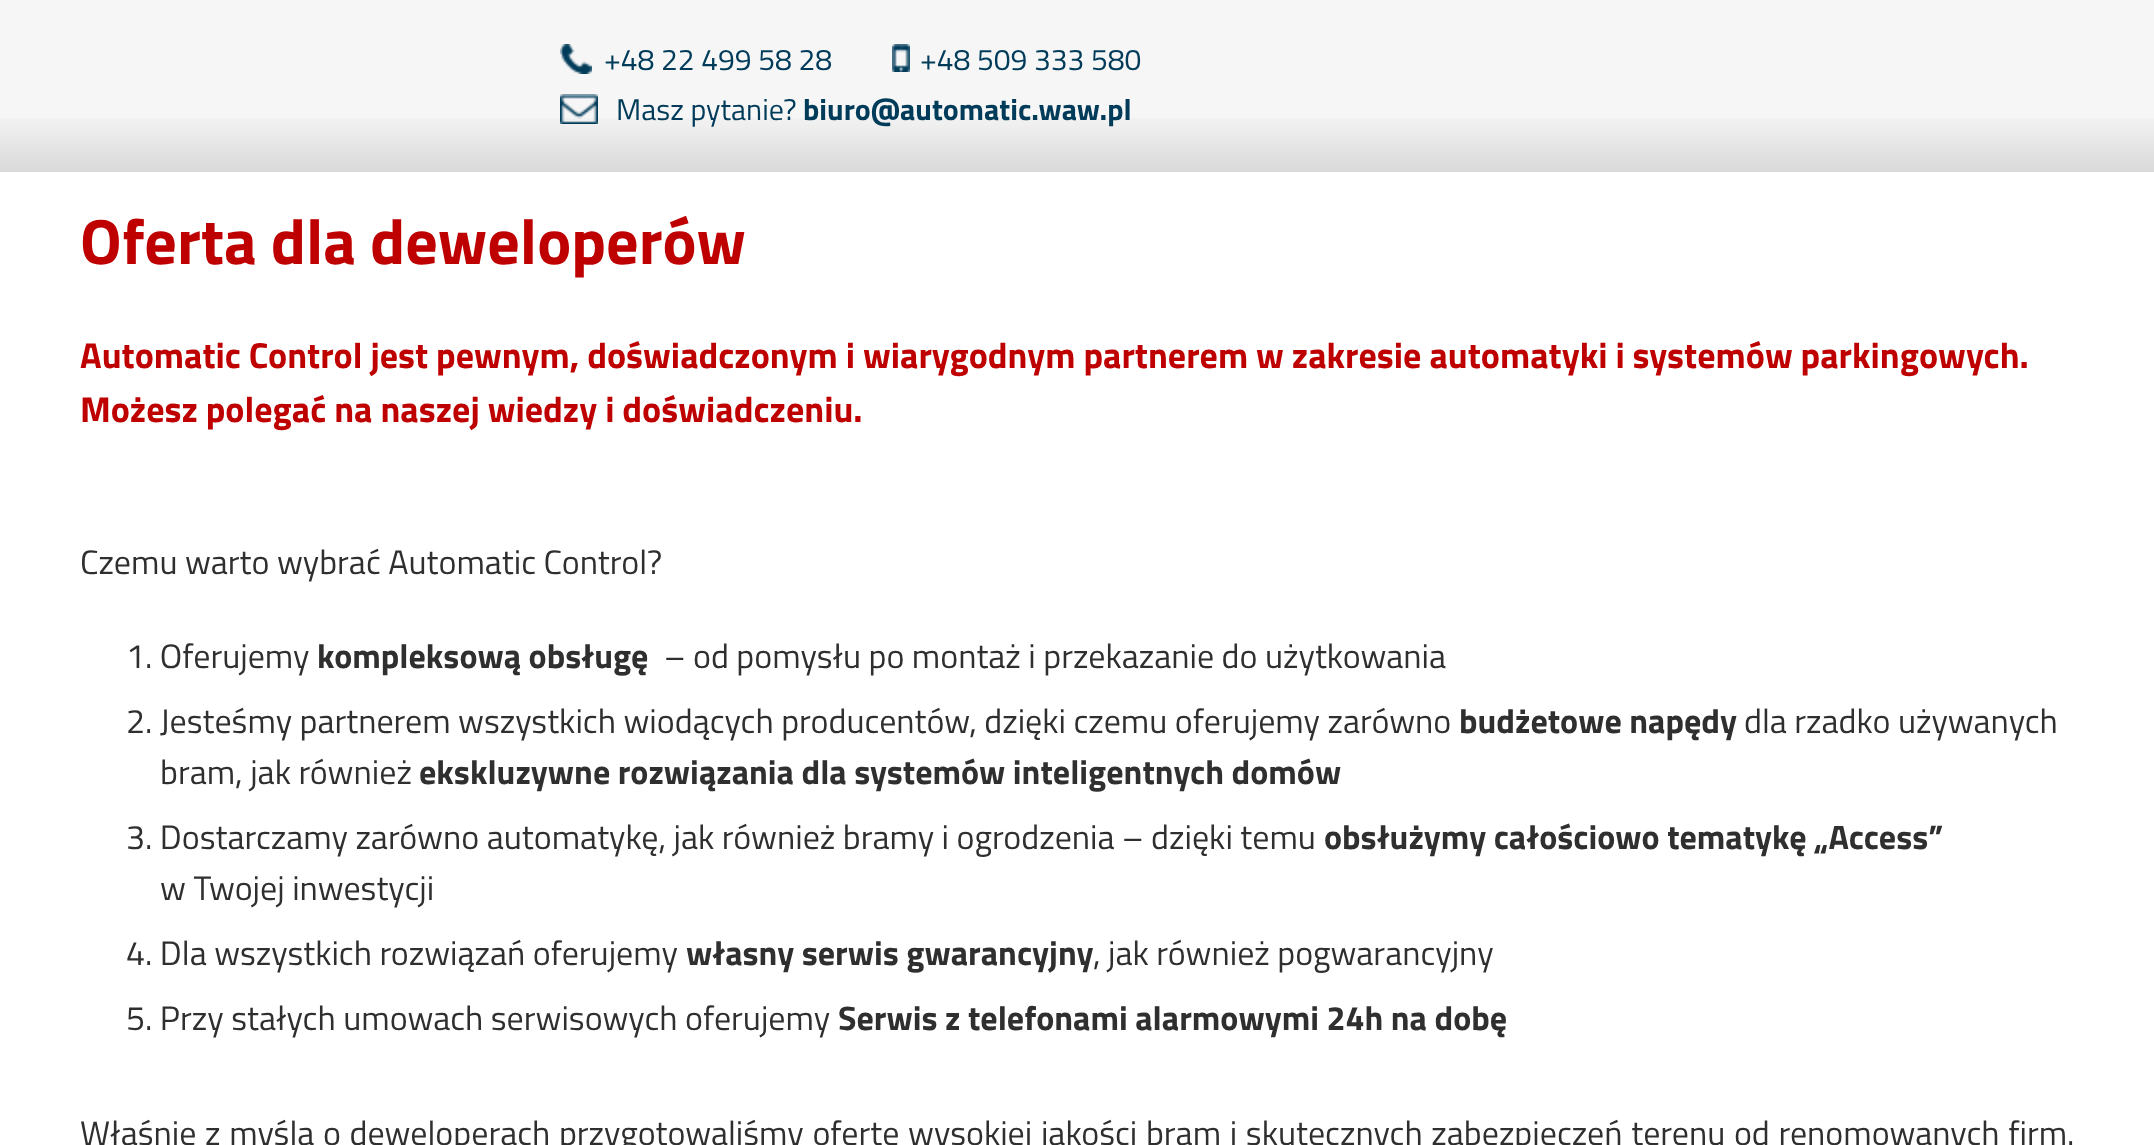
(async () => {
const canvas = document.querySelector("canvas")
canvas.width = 2154
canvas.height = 1145
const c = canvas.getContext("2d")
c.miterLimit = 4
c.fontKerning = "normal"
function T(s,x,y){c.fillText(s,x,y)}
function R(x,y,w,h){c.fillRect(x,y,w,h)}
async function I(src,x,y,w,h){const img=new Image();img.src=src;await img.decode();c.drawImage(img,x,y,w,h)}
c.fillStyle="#fff"
R(0,0,2154,1145)
c.fillStyle="#f6f6f6"
R(0,0,2154,118)
await I("1.png",0,118,2154,54)
await I("2.png",560,44,32,30)
c.font="30px Titillium Web"
c.fillStyle="#003b59"
T("+48 22 499 58 28",604,70)
await I("3.png",892,44,18,28)
T("+48 509 333 580",920,70)
await I("4.png",560,94,38,30)
T("Masz pytanie?",616,120)
c.font="bold 30px Titillium Web"
T("biuro@automatic.waw.pl",803,120)
c.font="bold 64px Titillium Web"
c.fillStyle="#bf0000"
T("Oferta dla deweloperów",80,264)
c.font="bold 36px Titillium Web"
T("Automatic Control jest pewnym, doświadczonym i wiarygodnym partnerem w zakresie automatyki i systemów parkingowych.",80,368)
T("Możesz polegać na naszej wiedzy i doświadczeniu.",80,422)
c.font="34px Titillium Web"
c.fillStyle="#2f2f2f"
T("Czemu warto wybrać Automatic Control?",80,574)
T("1. Oferujemy",126,668)
c.font="bold 34px Titillium Web"
T("kompleksową obsługę",317,668)
c.font="34px Titillium Web"
T("– od pomysłu po montaż i przekazanie do użytkowania",664,668)
T("2. Jesteśmy partnerem wszystkich wiodących producentów, dzięki czemu oferujemy zarówno",126,733)
c.font="bold 34px Titillium Web"
T("budżetowe napędy",1459,733)
c.font="34px Titillium Web"
T("dla rzadko używanych",1744,733)
T("bram, jak również",160,784)
c.font="bold 34px Titillium Web"
T("ekskluzywne rozwiązania dla systemów inteligentnych domów",419,784)
c.font="34px Titillium Web"
T("3. Dostarczamy zarówno automatykę, jak również bramy i ogrodzenia – dzięki temu",126,849)
c.font="bold 34px Titillium Web"
T("obsłużymy całościowo tematykę „Access”",1324,849)
c.font="34px Titillium Web"
T("w Twojej inwestycji",160,900)
T("4. Dla wszystkich rozwiązań oferujemy",126,965)
c.font="bold 34px Titillium Web"
T("własny serwis gwarancyjny",686,965)
c.font="34px Titillium Web"
T(", jak również pogwarancyjny",1093,965)
T("5. Przy stałych umowach serwisowych oferujemy",126,1030)
c.font="bold 34px Titillium Web"
T("Serwis z telefonami alarmowymi 24h na dobę",838,1030)
c.wordSpacing="1.2px"
c.font="34px Titillium Web"
T("Właśnie z myślą o deweloperach przygotowaliśmy ofertę wysokiej jakości bram i skutecznych zabezpieczeń terenu od renomowanych firm.",80,1145)
})()
